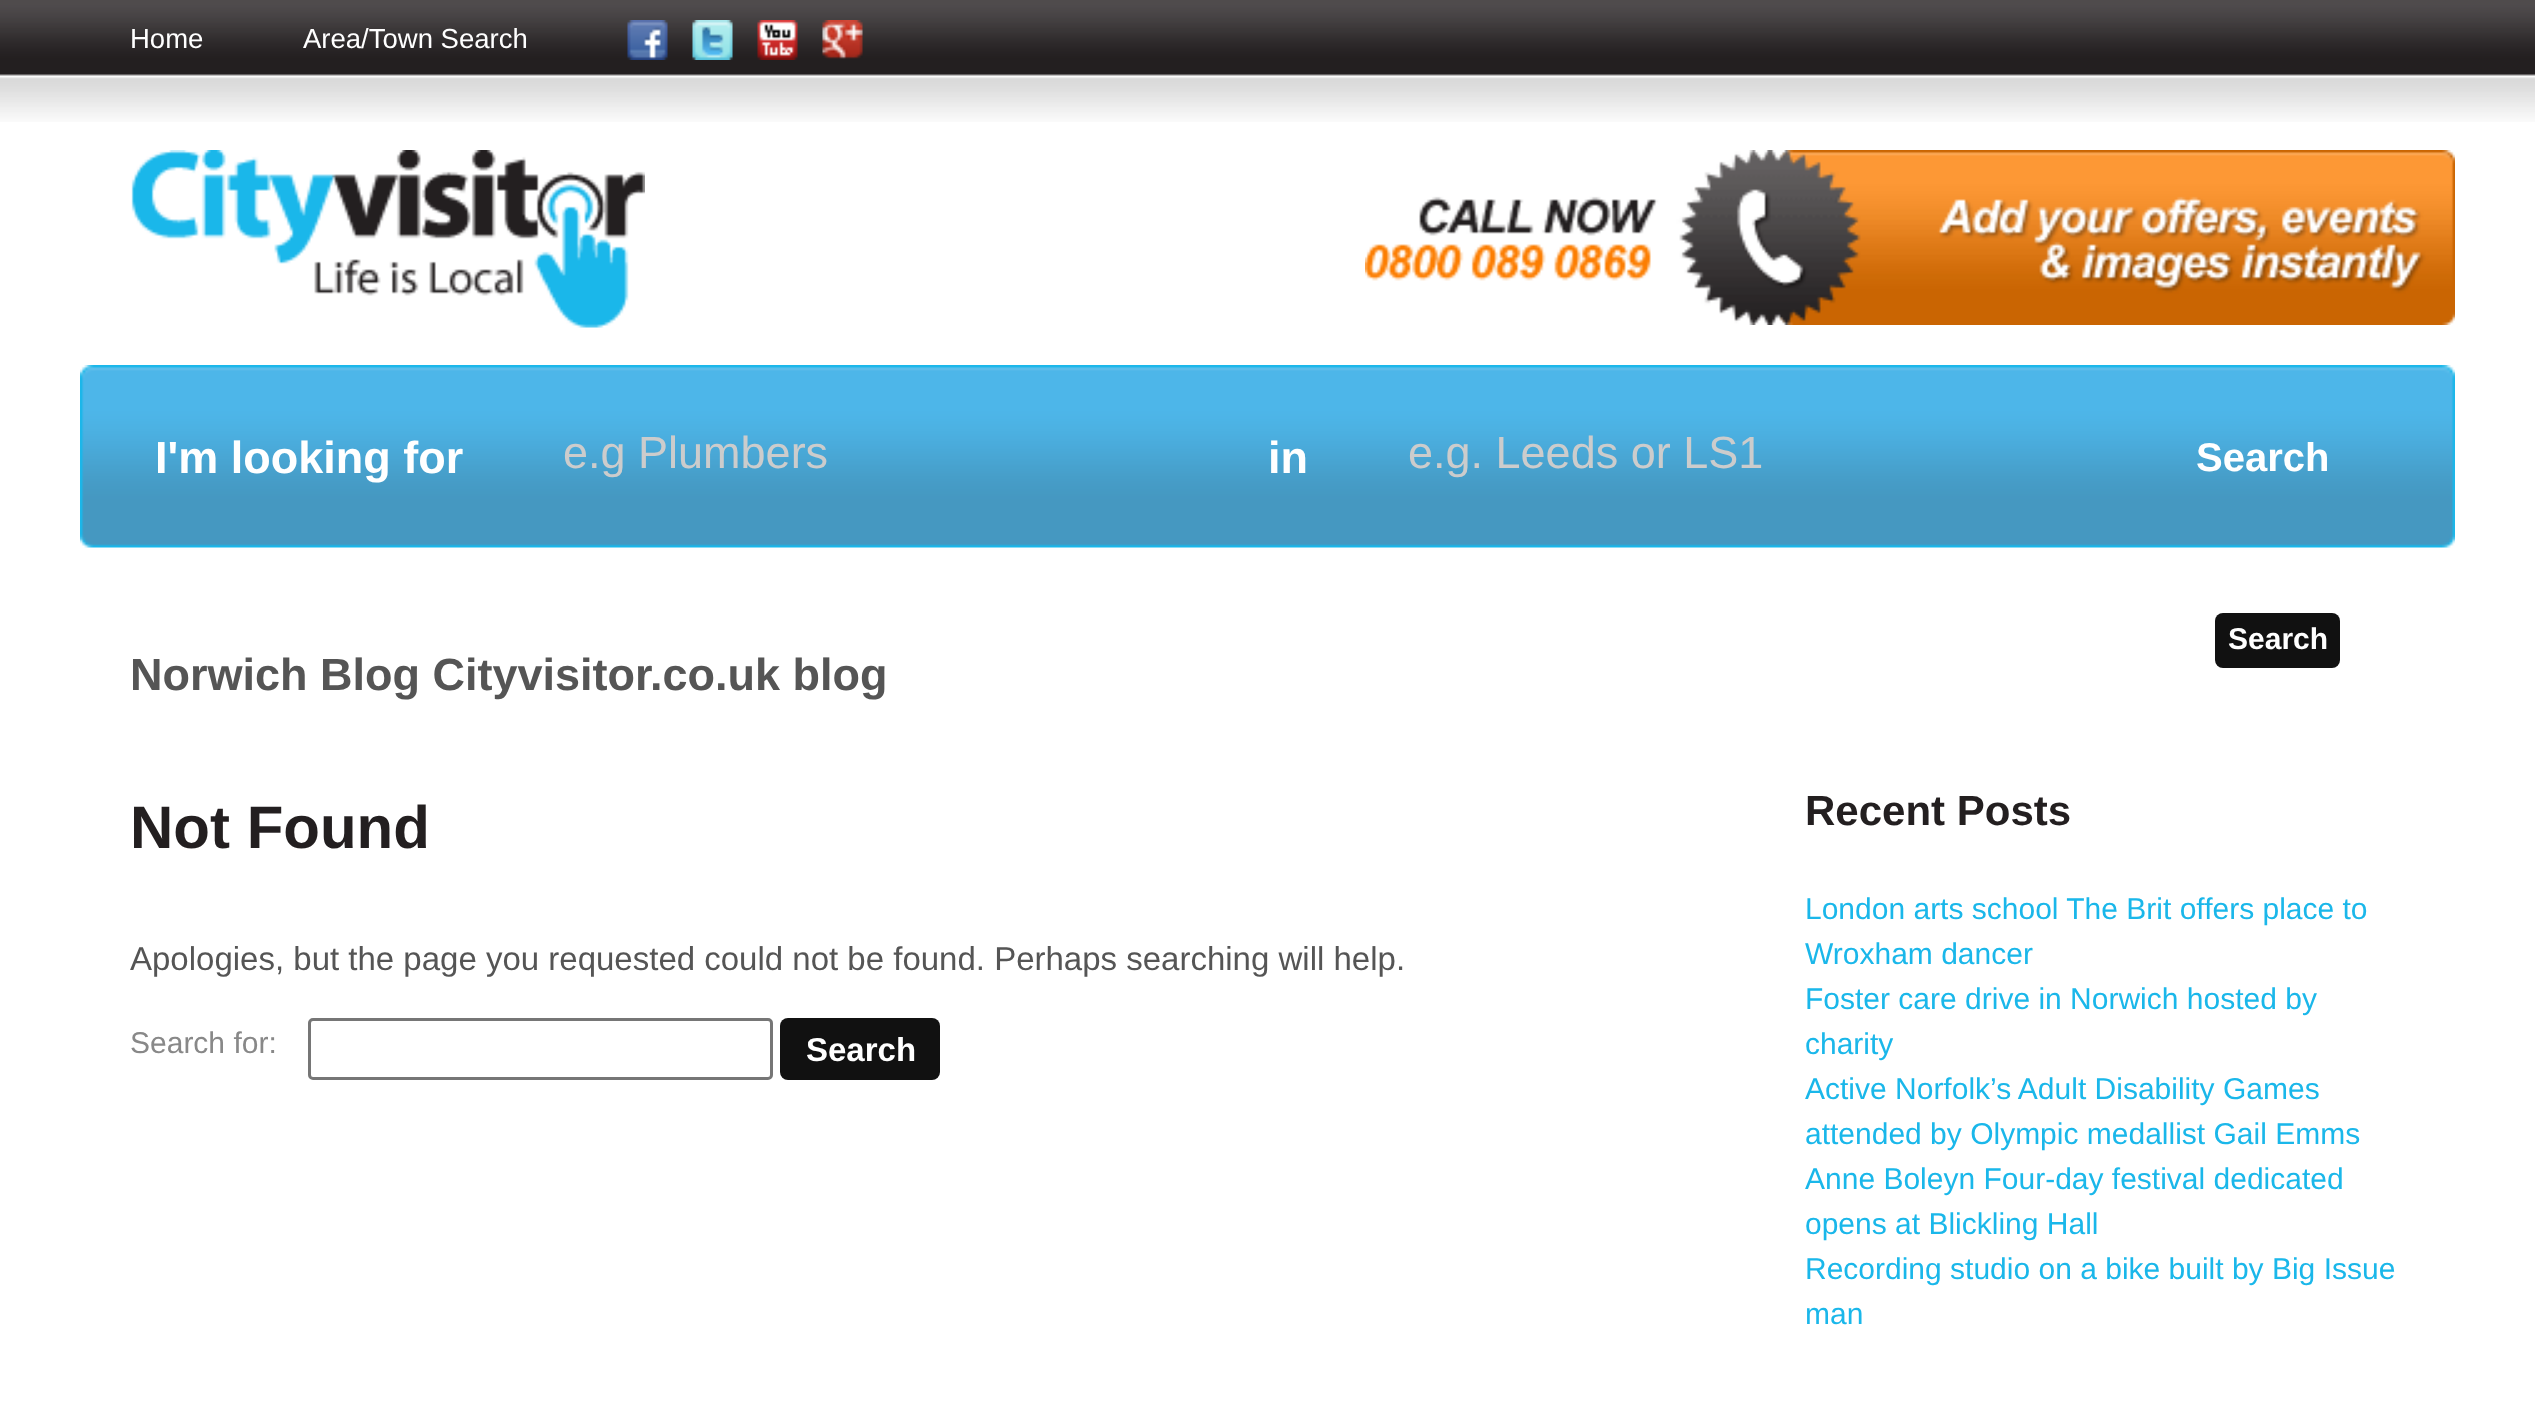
(async () => {
const canvas = document.querySelector("canvas")
canvas.width = 2535
canvas.height = 1417
const c = canvas.getContext("2d")
c.miterLimit = 4
c.fontKerning = "normal"
function T(s,x,y){c.fillText(s,x,y)}
function R(x,y,w,h){c.fillRect(x,y,w,h)}
function Q(x,y,w,h,r){c.beginPath();c.roundRect(x,y,w,h,r);c.fill()}
async function I(src,x,y,w,h){const img=new Image();img.src=src;await img.decode();c.drawImage(img,x,y,w,h)}
c.fillStyle="#fff"
R(0,0,2535,1417)
await I("1.png",0,0,2535,122)
c.font="27.5px Liberation Sans"
T("Home",130,48)
T("Area/Town Search",303,48)
await I("2.png",627,20,41,40)
await I("3.png",692,20,41,40)
await I("4.png",757,20,41,40)
await I("5.png",822,20,41,39)
await I("6.png",131,150,514,178)
await I("7.png",1365,150,1090,175)
await I("8.png",80,365,2375,183)
c.font="bold 45px Liberation Sans"
T("I'm looking for",155,473)
c.font="45px Liberation Sans"
c.fillStyle="#ccc"
T("e.g Plumbers",563,468)
c.font="bold 45px Liberation Sans"
c.fillStyle="#fff"
T("in",1268,473)
c.font="45px Liberation Sans"
c.fillStyle="#ccc"
T("e.g. Leeds or LS1",1408,468)
c.font="bold 40px Liberation Sans"
c.fillStyle="#fff"
T("Search",2196,471)
c.font="bold 45px Liberation Sans"
c.fillStyle="#555"
T("Norwich Blog Cityvisitor.co.uk blog",130,690)
c.font="bold 60px Liberation Sans"
c.fillStyle="#231f20"
T("Not Found",130,848)
c.font="33px Liberation Sans"
c.fillStyle="#555"
T("Apologies, but the page you requested could not be found. Perhaps searching will help.",130,970)
c.font="30px Liberation Sans"
c.fillStyle="#888"
T("Search for:",130,1053)
c.beginPath()
c.roundRect(309.5,1019.5,462,59,3.5)
c.strokeStyle="#767676"
c.lineWidth=3
c.stroke()
c.fillStyle="#111"
Q(780,1018,160,62,8)
c.font="bold 33px Liberation Sans"
c.fillStyle="#fff"
T("Search",806,1061)
c.fillStyle="#111"
Q(2215,613,125,55,8)
c.font="bold 30px Liberation Sans"
c.fillStyle="#fff"
T("Search",2228,649)
c.font="bold 42px Liberation Sans"
c.fillStyle="#231f20"
T("Recent Posts",1805,825)
c.font="30px Liberation Sans"
c.fillStyle="#1ab7ea"
T("London arts school The Brit offers place to",1805,919)
T("Wroxham dancer",1805,964)
T("Foster care drive in Norwich hosted by",1805,1009)
T("charity",1805,1054)
T("Active Norfolk’s Adult Disability Games",1805,1099)
T("attended by Olympic medallist Gail Emms",1805,1144)
T("Anne Boleyn Four-day festival dedicated",1805,1189)
T("opens at Blickling Hall",1805,1234)
T("Recording studio on a bike built by Big Issue",1805,1279)
T("man",1805,1324)
})()
